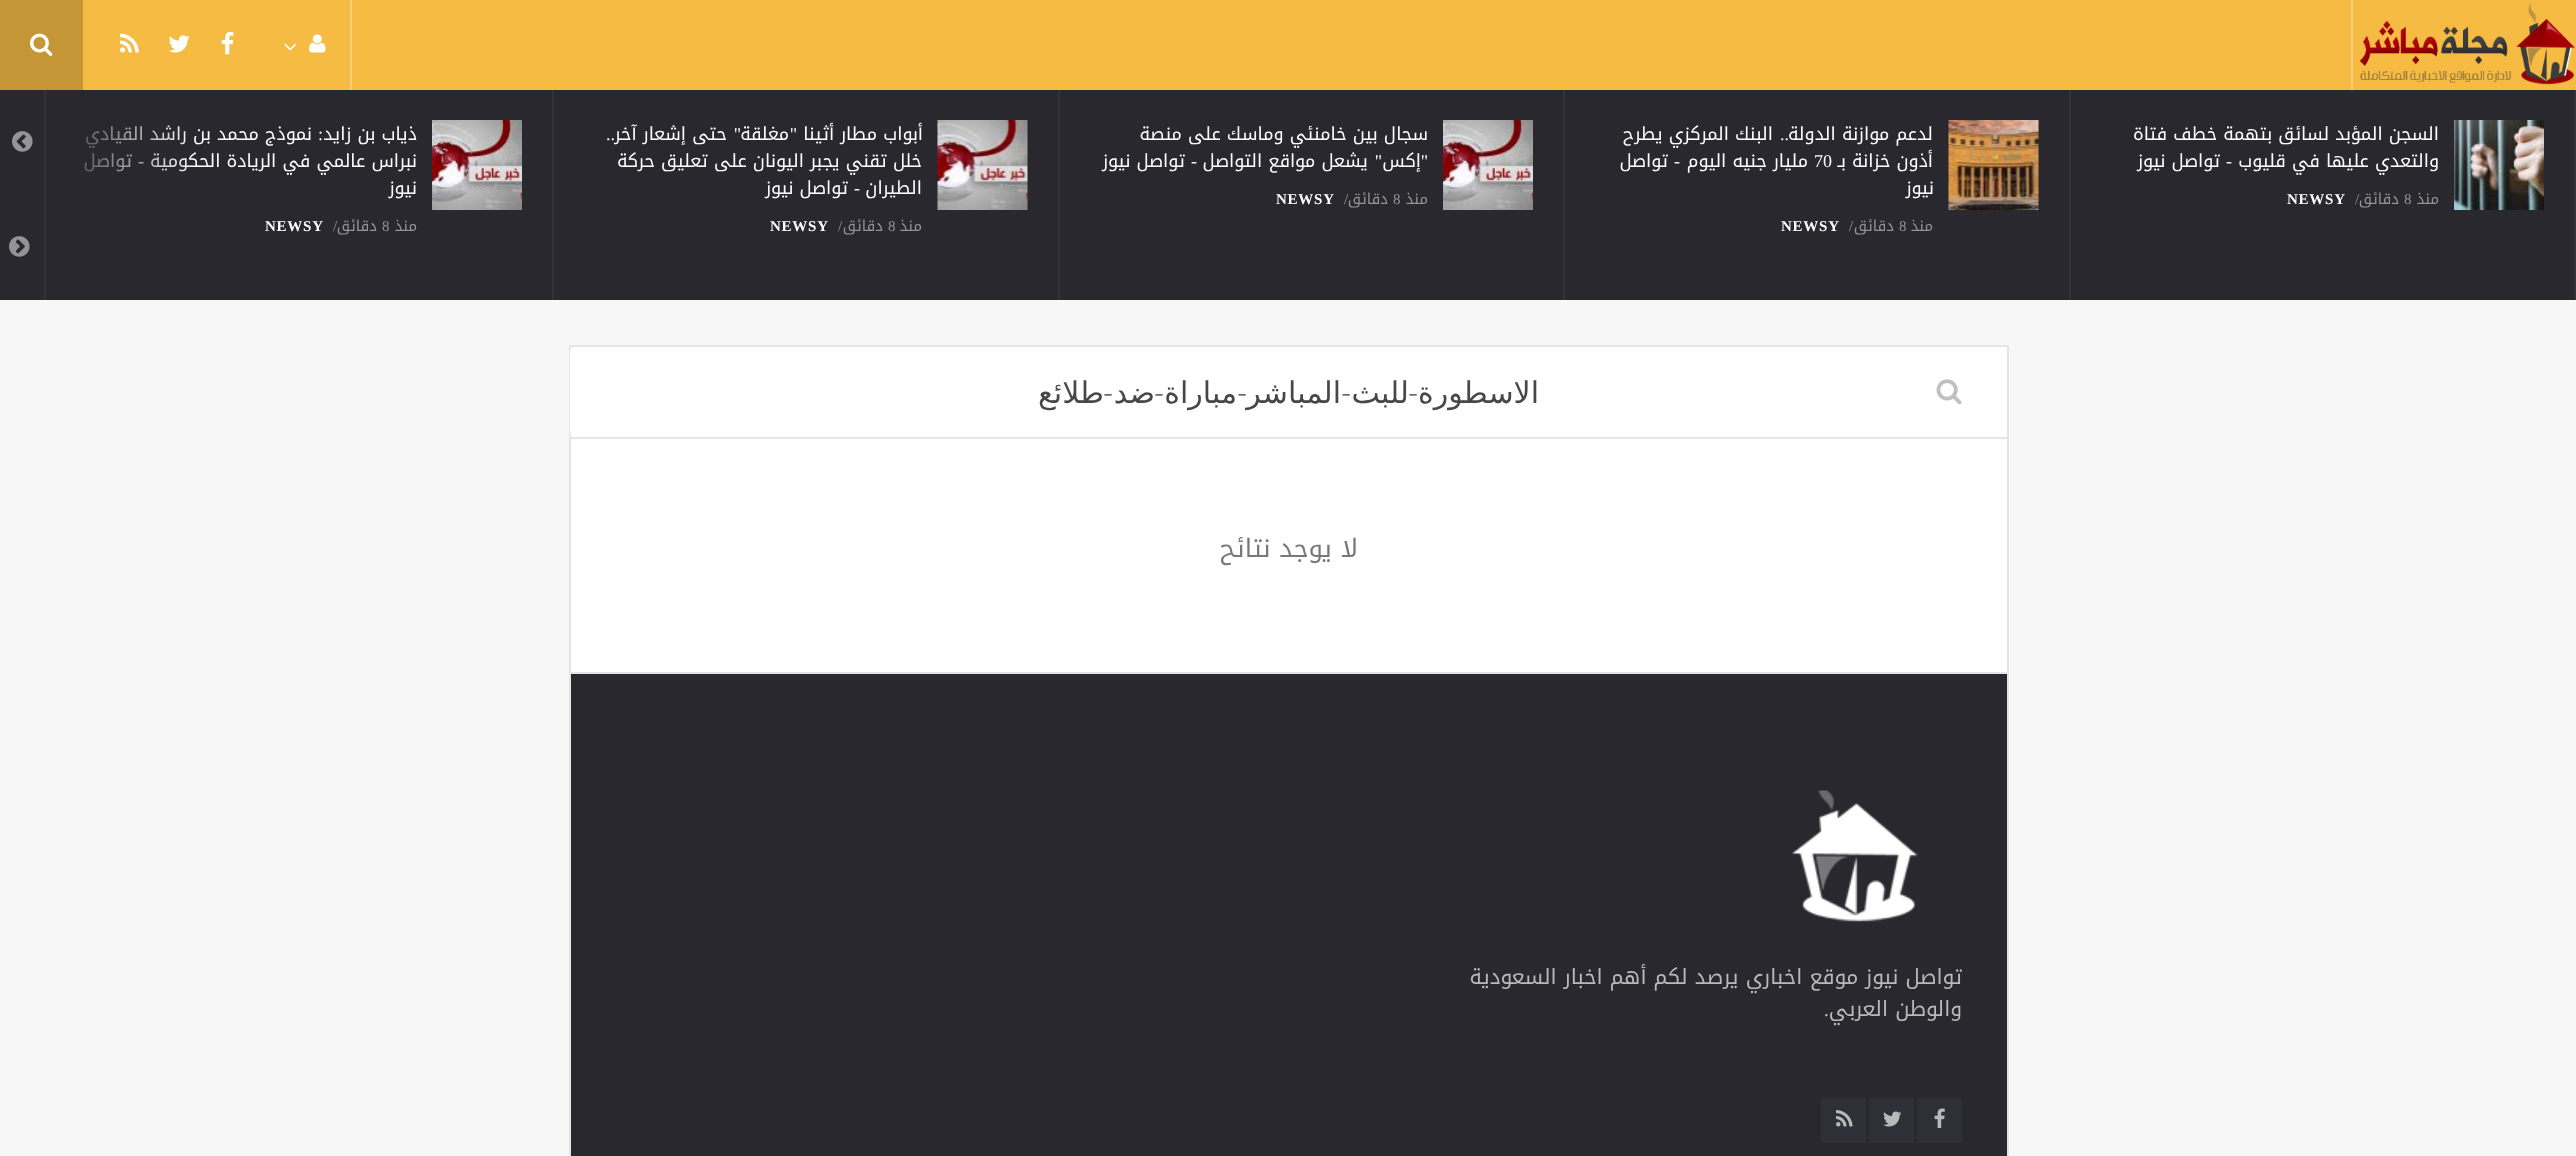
(async () => {
const canvas = document.querySelector("canvas")
canvas.width = 2576
canvas.height = 1156
const c = canvas.getContext("2d")
c.miterLimit = 4
c.fontKerning = "normal"
function T(s,x,y){c.fillText(s,x,y)}
function R(x,y,w,h){c.fillRect(x,y,w,h)}
function Q(x,y,w,h,r){c.beginPath();c.roundRect(x,y,w,h,r);c.fill()}
async function I(src,x,y,w,h){const img=new Image();img.src=src;await img.decode();c.drawImage(img,x,y,w,h)}
let gradient
c.fillStyle="#f7f7f7"
R(0,0,2576,1156)
c.fillStyle="#f6bb43"
R(83,0,2493,90)
c.fillStyle="#f9cf7b"
R(2351,0,2,90)
await I("1.png",2359,3,216,82)
R(350,0,2,90)
await I("2.png",309,34,17,19)
await I("3.png",284,43,13,8)
await I("4.png",221,31,13,24)
await I("5.png",168,35,22,18)
await I("6.png",120,33,19,20)
c.fillStyle="#c59636"
R(0,0,83,90)
await I("7.png",30,33,23,23)
c.fillStyle="#28282e"
R(0,90,2574,210)
c.fillStyle="#333"
R(47,90,2,210)
c.direction="rtl"
c.font="18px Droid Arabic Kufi"
c.fillStyle="#fff"
T("نموذج محمد بن راشد القيادي",312,140)
T("نبراس عالمي في الريادة الحكومية",417,167)
c.font="18px Liberation Serif"
T("-",144,167)
c.font="18px Droid Arabic Kufi"
T("تواصل",132,167)
gradient = c.createLinearGradient(197,195,46,195)
gradient.addColorStop(0,"#28282e00")
gradient.addColorStop(1,"#28282e")
c.fillStyle = gradient
R(47,90,147,210)
c.fillStyle="#333"
R(2574,90,2,210)
R(2069,90,2,210)
await I("8.png",2454,120,90,90)
c.fillStyle="#fff"
T("السجن المؤبد لسائق بتهمة خطف فتاة",2439,140)
T("والتعدي عليها في قليوب",2439,167)
c.font="18px Liberation Serif"
T("-",2232,167)
c.font="18px Droid Arabic Kufi"
T("تواصل نيوز",2220,167)
c.font="15px Droid Arabic Kufi"
c.fillStyle="#949494"
T("منذ",2439,204)
c.direction="ltr"
c.font="15px Liberation Serif"
T("8",2404,204)
c.direction="rtl"
c.font="15px Droid Arabic Kufi"
T("دقائق",2399,204)
c.direction="ltr"
c.font="15px Liberation Serif"
T("/",2355,204)
c.letterSpacing="0.75px"
c.font="bold 15px Liberation Serif"
c.fillStyle="#fff"
T("NEWSY",2287,204)
c.fillStyle="#333"
R(1563,90,2,210)
await I("9.png",1948,120,91,90)
c.letterSpacing="0px"
c.direction="rtl"
c.font="18px Droid Arabic Kufi"
c.fillStyle="#fff"
T("لدعم موازنة الدولة",1933,140)
c.font="18px Liberation Serif"
T("..",1789,140)
c.font="18px Droid Arabic Kufi"
T("البنك المركزي يطرح",1773,140)
T("أذون خزانة بـ",1933,167)
c.direction="ltr"
c.font="18px Liberation Serif"
T("70",1814,167)
c.direction="rtl"
c.font="18px Droid Arabic Kufi"
T("مليار جنيه اليوم",1808,167)
c.font="18px Liberation Serif"
T("-",1680,167)
c.font="18px Droid Arabic Kufi"
T("تواصل",1668,167)
T("نيوز",1934,194)
c.font="15px Droid Arabic Kufi"
c.fillStyle="#949494"
T("منذ",1933,231)
c.direction="ltr"
c.font="15px Liberation Serif"
T("8",1899,231)
c.direction="rtl"
c.font="15px Droid Arabic Kufi"
T("دقائق",1894,231)
c.direction="ltr"
c.font="15px Liberation Serif"
T("/",1849,231)
c.letterSpacing="0.75px"
c.font="bold 15px Liberation Serif"
c.fillStyle="#fff"
T("NEWSY",1781,231)
c.fillStyle="#333"
R(1058,90,2,210)
await I("10.png",1443,120,90,90)
c.letterSpacing="0px"
c.direction="rtl"
c.font="18px Droid Arabic Kufi"
c.fillStyle="#fff"
T("سجال بين خامنئي وماسك على منصة",1428,140)
c.font="18px Liberation Serif"
T("\"",1428,167)
c.font="18px Droid Arabic Kufi"
T("إكس",1421,167)
c.font="18px Liberation Serif"
T("\"",1382,167)
c.font="18px Droid Arabic Kufi"
T("يشعل مواقع التواصل",1368,167)
T("تواصل نيوز",1185,167)
c.font="18px Liberation Serif"
T("-",1197,167)
c.font="15px Droid Arabic Kufi"
c.fillStyle="#949494"
T("منذ",1428,204)
c.direction="ltr"
c.font="15px Liberation Serif"
T("8",1393,204)
c.direction="rtl"
c.font="15px Droid Arabic Kufi"
T("دقائق",1388,204)
c.direction="ltr"
c.font="15px Liberation Serif"
T("/",1344,204)
c.letterSpacing="0.75px"
c.font="bold 15px Liberation Serif"
c.fillStyle="#fff"
T("NEWSY",1276,204)
c.fillStyle="#333"
R(552,90,2,210)
await I("11.png",937,120,91,90)
c.letterSpacing="0px"
c.direction="rtl"
c.font="18px Droid Arabic Kufi"
c.fillStyle="#fff"
T("أبواب مطار أثينا",923,140)
c.font="18px Liberation Serif"
T("\"",797,140)
c.font="18px Droid Arabic Kufi"
T("مغلقة",789,140)
c.font="18px Liberation Serif"
T("\"",741,140)
T("..",615,140)
c.font="18px Droid Arabic Kufi"
T("حتى إشعار آخر",727,140)
T("خلل تقني يجبر اليونان على تعليق حركة",922,167)
T("الطيران",922,194)
c.font="18px Liberation Serif"
T("-",860,194)
c.font="18px Droid Arabic Kufi"
T("تواصل نيوز",848,194)
c.font="15px Droid Arabic Kufi"
c.fillStyle="#949494"
T("منذ",922,231)
c.direction="ltr"
c.font="15px Liberation Serif"
T("8",888,231)
c.direction="rtl"
c.font="15px Droid Arabic Kufi"
T("دقائق",883,231)
c.direction="ltr"
c.font="15px Liberation Serif"
T("/",838,231)
c.letterSpacing="0.75px"
c.font="bold 15px Liberation Serif"
c.fillStyle="#fff"
T("NEWSY",770,231)
await I("10.png",432,120,90,90)
c.letterSpacing="0px"
c.direction="rtl"
c.font="18px Droid Arabic Kufi"
T("ذياب بن زايد",417,140)
c.font="18px Liberation Serif"
T(":",323,140)
c.font="18px Droid Arabic Kufi"
T("نيوز",417,194)
c.font="15px Droid Arabic Kufi"
c.fillStyle="#949494"
T("منذ",417,231)
c.direction="ltr"
c.font="15px Liberation Serif"
T("8",382,231)
c.direction="rtl"
c.font="15px Droid Arabic Kufi"
T("دقائق",377,231)
c.direction="ltr"
c.font="15px Liberation Serif"
T("/",333,231)
c.letterSpacing="0.75px"
c.font="bold 15px Liberation Serif"
c.fillStyle="#fff"
T("NEWSY",265,231)
c.fillStyle="#333"
R(44,90,2,210)
await I("12.png",12,131,21,21)
await I("13.png",9,236,21,21)
c.fillStyle="#fff"
c.beginPath()
c.rect(570,346,1438,327)
c.fill()
c.strokeStyle="#e5e5e5"
c.lineWidth=2
c.stroke()
c.fillStyle="#e5e5e5"
R(570,437,1437,2)
c.fillStyle="#fff"
Q(570,347,1437,90,5)
await I("14.png",1936,379,26,26)
c.letterSpacing="0px"
c.direction="rtl"
c.font="30px DejaVu Sans"
c.fillStyle="#474747"
T("الاسطورة",1539,403)
c.font="300 30px Open Sans"
T("-",1418,403)
c.font="30px DejaVu Sans"
T("للبث",1409,403)
c.font="300 30px Open Sans"
T("-",1351,403)
T("-",1247,403)
c.font="30px DejaVu Sans"
T("المباشر",1341,403)
T("مباراة",1237,403)
c.font="300 30px Open Sans"
T("-",1164,403)
c.font="30px DejaVu Sans"
T("ضد",1155,403)
c.font="300 30px Open Sans"
T("-",1113,403)
c.font="30px DejaVu Sans"
T("طلائع",1104,403)
c.font="25.5px Droid Arabic Kufi"
c.fillStyle="#787878"
T("لا يوجد نتائح",1358,557)
c.fillStyle="#28282e"
R(571,674,1436,482)
c.fillStyle="#e5e5e5"
R(2007,674,2,482)
R(569,674,2,482)
await I("15.png",1792,790,126,132)
c.font="21px Droid Arabic Kufi"
c.fillStyle="#b9b9b9"
T("تواصل نيوز موقع اخباري يرصد لكم أهم اخبار السعودية",1962,984)
T("والوطن العربي",1962,1016)
c.font="21px Liberation Serif"
T(".",1829,1016)
c.fillStyle="#2f2f37"
R(1917,1098,45,45)
await I("16.png",1934,1108,11,20)
R(1869,1098,45,45)
await I("17.png",1883,1111,19,16)
R(1821,1098,45,45)
await I("18.png",1836,1110,17,17)
})()
